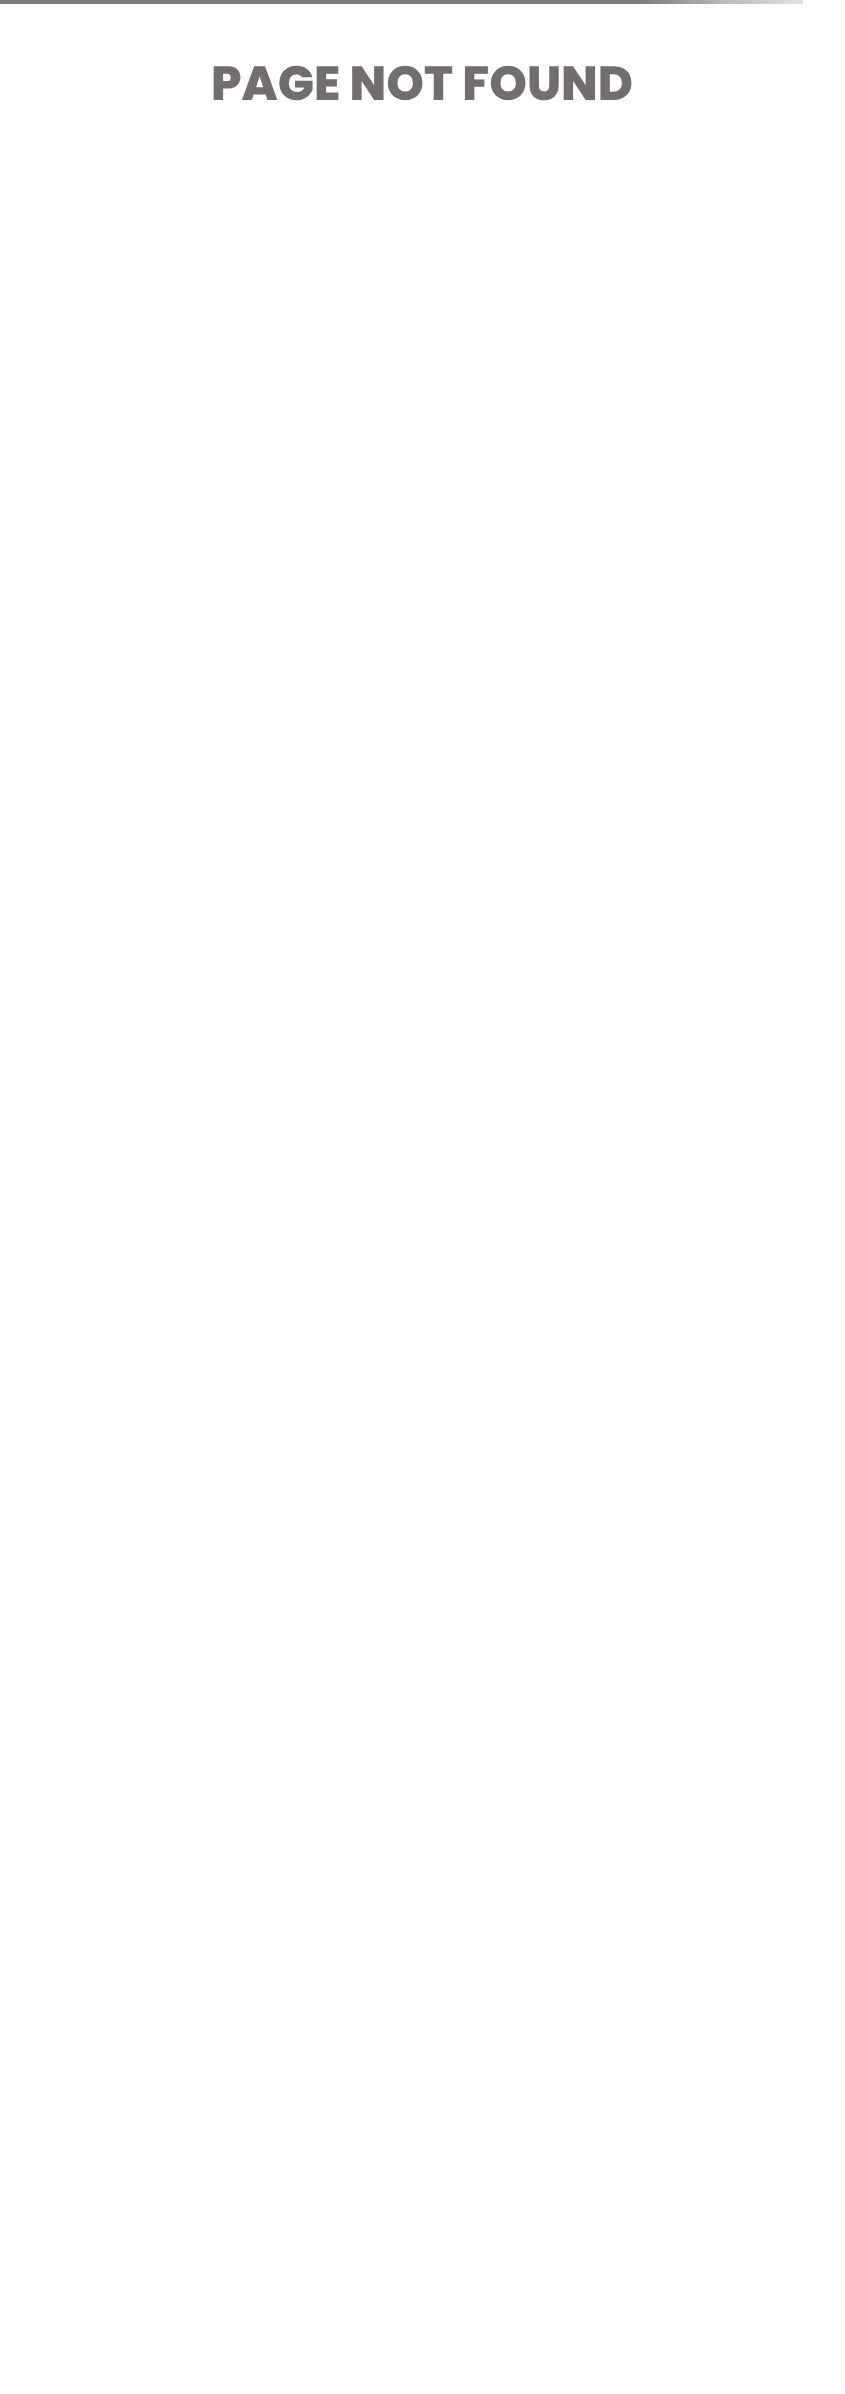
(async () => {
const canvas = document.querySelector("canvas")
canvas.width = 845
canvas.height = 2394
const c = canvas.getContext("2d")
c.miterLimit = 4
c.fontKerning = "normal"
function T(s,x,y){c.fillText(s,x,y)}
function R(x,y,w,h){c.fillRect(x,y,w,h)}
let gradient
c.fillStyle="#fff"
R(0,0,845,2394)
gradient = c.createLinearGradient(0,2,803,2)
gradient.addColorStop(.8,"#807d7d")
gradient.addColorStop(.9,"#b9b7b7")
gradient.addColorStop(1,"#e3e2e2")
c.fillStyle = gradient
R(0,0,803,4)
c.font="800 48px Poppins"
c.fillStyle="#726e6e"
T("PAGE NOT FOUND",211,100)
})()
